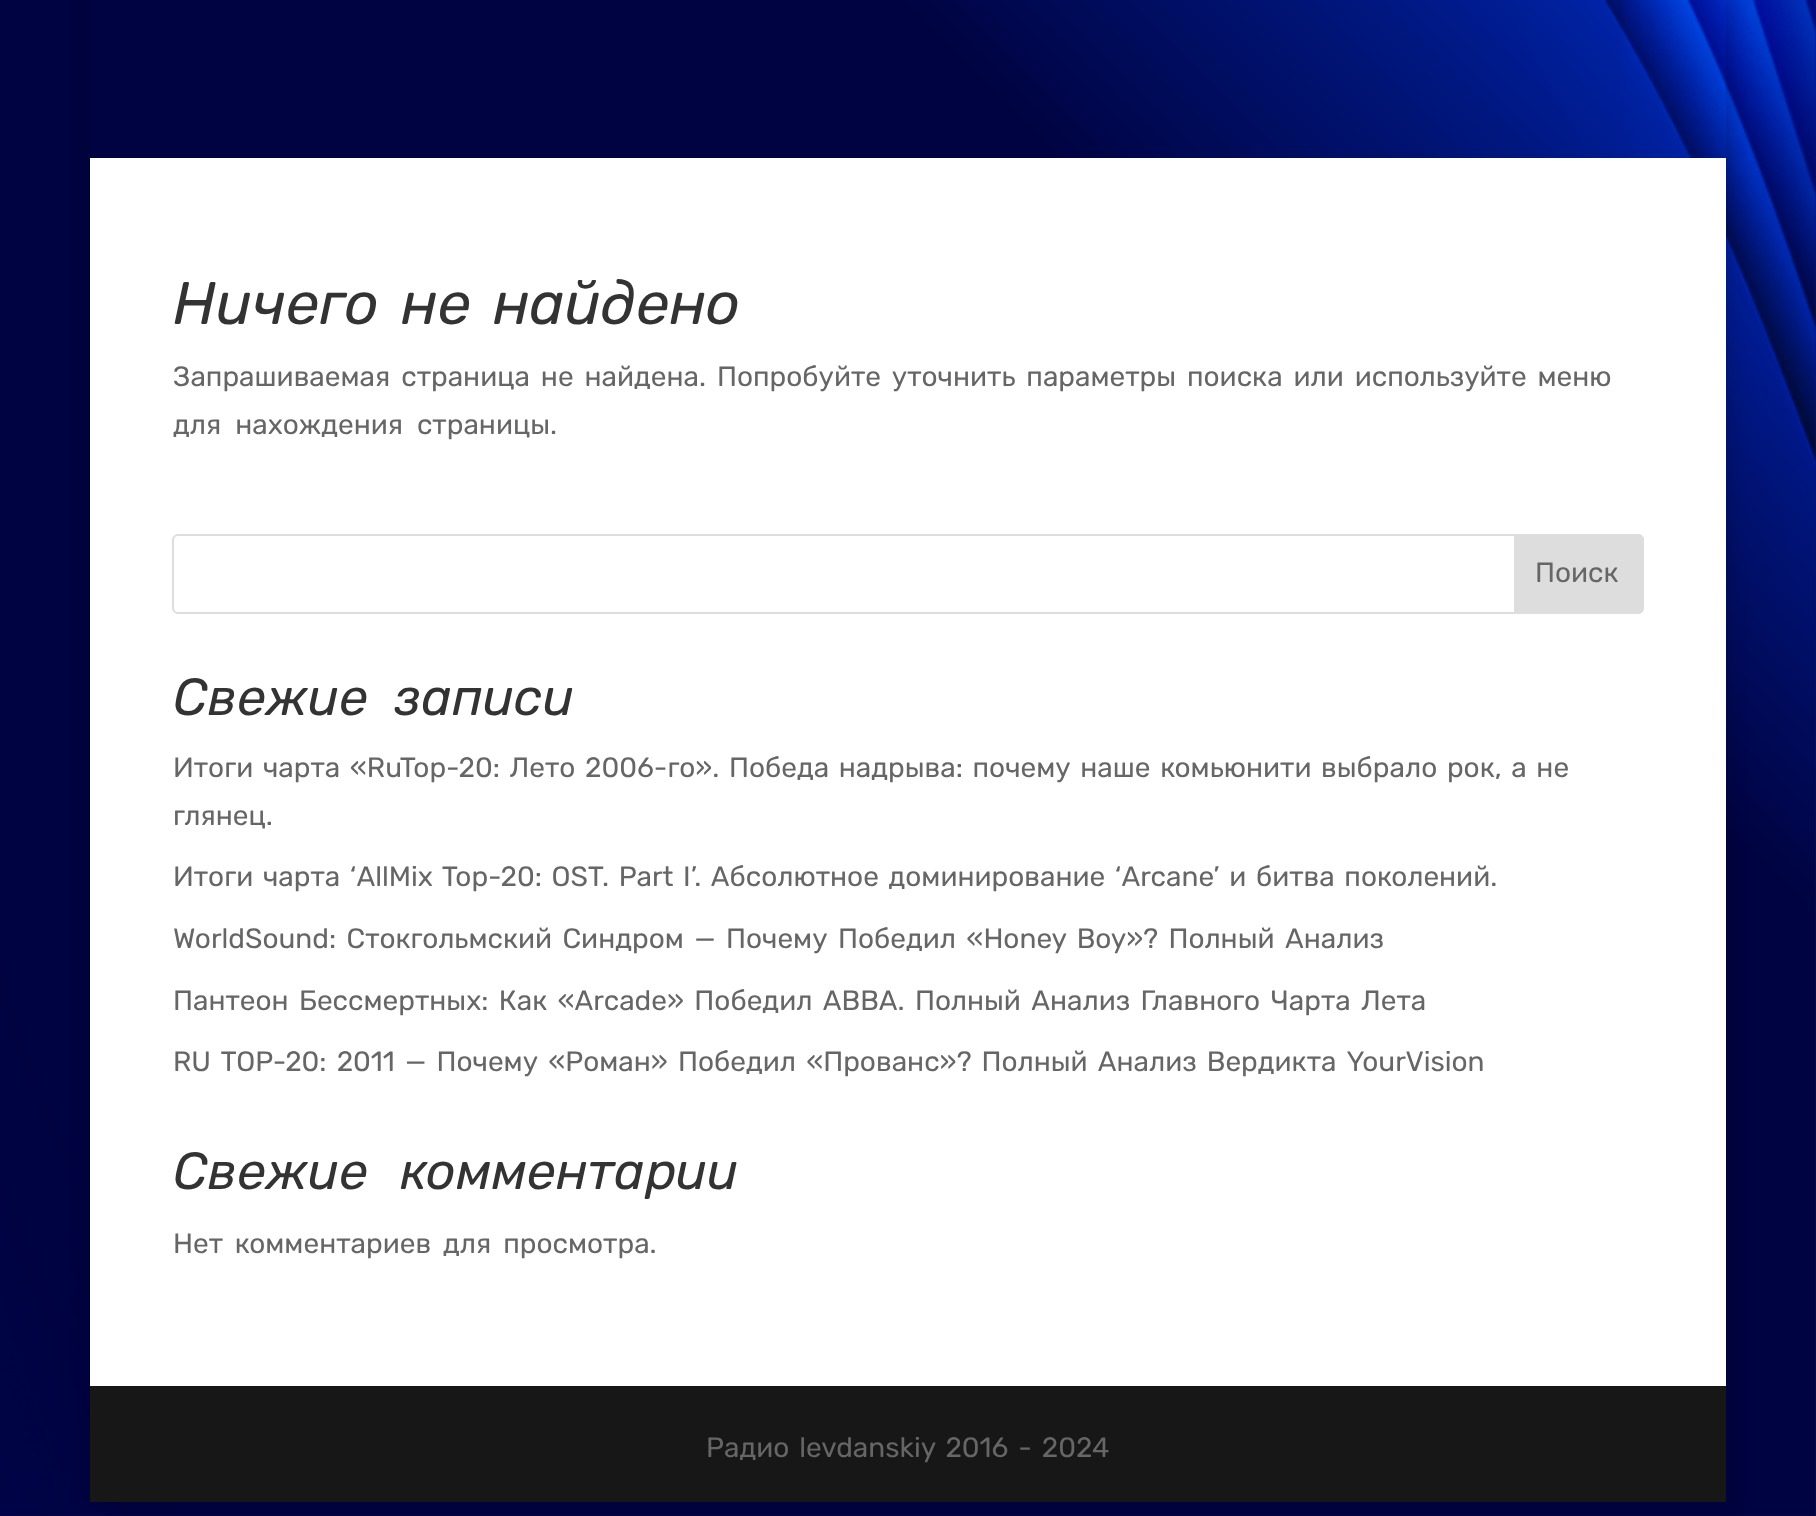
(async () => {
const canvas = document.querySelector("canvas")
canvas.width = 1816
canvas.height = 1516
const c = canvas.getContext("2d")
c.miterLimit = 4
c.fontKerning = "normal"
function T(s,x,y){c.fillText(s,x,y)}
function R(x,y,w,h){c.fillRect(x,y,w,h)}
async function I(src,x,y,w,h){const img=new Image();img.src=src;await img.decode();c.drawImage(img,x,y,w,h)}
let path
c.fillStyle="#43004f"
R(0,0,1816,1516)
await I("1.png",0,0,1816,1516)
c.save()
path = new Path2D("M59 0h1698v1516h-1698zm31 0h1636v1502h-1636z")
c.clip(path,"evenodd")
c.fillStyle="#00000033"
c.filter="blur(10px)"
c.beginPath()
c.rect(90,0,1636,1502)
c.fill()
c.filter="none"
c.restore()
c.fillStyle="#fff"
R(90,158,1636,1228)
c.wordSpacing="7px"
c.font="italic 60px Rubik"
c.fillStyle="#333"
T("Ничего не найдено",173,324)
c.wordSpacing="4px"
c.font="28px Rubik"
c.fillStyle="#666"
T("Запрашиваемая страница не найдена. Попробуйте уточнить параметры поиска или используйте меню",173,386)
c.wordSpacing="7px"
T("для нахождения страницы.",173,434)
c.beginPath()
c.roundRect(173,535,1470,78,5)
c.strokeStyle="#ddd"
c.lineWidth=2
c.stroke()
c.fillStyle="#ddd"
c.beginPath()
c.roundRect(1515,535,128,78,[0,5,5,0])
c.fill()
c.stroke()
c.wordSpacing="0px"
c.fillStyle="#666"
T("Поиск",1535,582)
c.wordSpacing="13px"
c.font="italic 52px Rubik"
c.fillStyle="#333"
T("Свежие записи",173,715)
c.wordSpacing="2.75px"
c.font="28px Rubik"
c.fillStyle="#666"
T("Итоги чарта «RuTop-20: Лето 2006-го». Победа надрыва: почему наше комьюнити выбрало рок, а не",173,777)
c.wordSpacing="0px"
T("глянец.",173,825)
c.wordSpacing="2.75px"
T("Итоги чарта ‘AllMix Top-20: OST. Part I’. Абсолютное доминирование ‘Arcane’ и битва поколений.",173,886)
c.wordSpacing="3.5px"
T("WorldSound: Стокгольмский Синдром — Почему Победил «Honey Boy»? Полный Анализ",173,948)
T("Пантеон Бессмертных: Как «Arcade» Победил ABBA. Полный Анализ Главного Чарта Лета",173,1010)
c.wordSpacing="3.25px"
T("RU TOP-20: 2011 — Почему «Роман» Победил «Прованс»? Полный Анализ Вердикта YourVision",173,1071)
c.wordSpacing="19px"
c.font="italic 52px Rubik"
c.fillStyle="#333"
T("Свежие комментарии",173,1189)
c.wordSpacing="5px"
c.font="28px Rubik"
c.fillStyle="#666"
T("Нет комментариев для просмотра.",173,1253)
c.fillStyle="#171717"
R(90,1386,1636,116)
c.wordSpacing="3px"
c.fillStyle="#666"
T("Радио levdanskiy 2016 - 2024",706,1457)
})()
